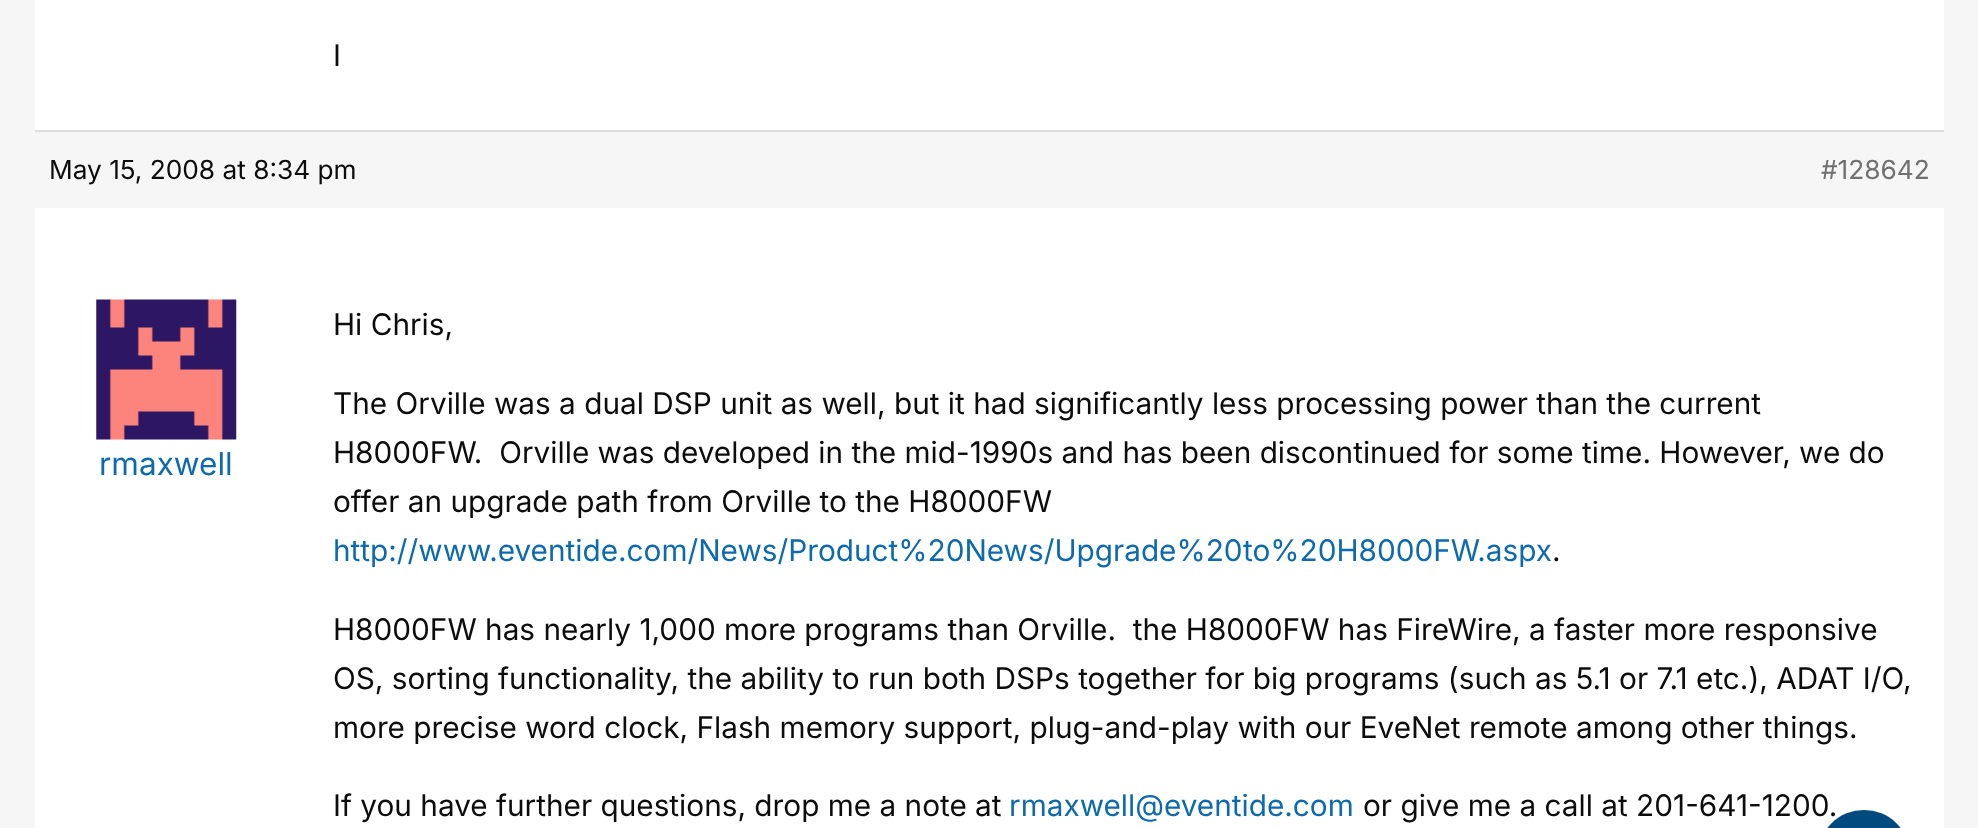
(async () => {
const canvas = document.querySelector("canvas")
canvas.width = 1978
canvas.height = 828
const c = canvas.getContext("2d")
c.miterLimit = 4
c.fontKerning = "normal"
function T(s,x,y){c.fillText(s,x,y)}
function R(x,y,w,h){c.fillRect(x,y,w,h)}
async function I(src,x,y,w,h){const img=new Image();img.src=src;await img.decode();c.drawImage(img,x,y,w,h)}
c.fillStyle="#f6f6f6"
R(0,0,1978,828)
c.fillStyle="#fff"
R(35,0,1909,130)
c.font="29.75px Inter"
c.fillStyle="#0c0c0c"
T("I",333,66)
c.fillStyle="#ddd"
R(35,130,1909,2)
c.font="26.25px Inter"
c.fillStyle="#0c0c0c"
T("May 15, 2008 at 8:34 pm",49,179)
c.fillStyle="#707070"
T("#128642",1821,179)
c.fillStyle="#fff"
R(35,208,1909,620)
await I("1.png",96,299,141,141)
c.font="31.5px Inter"
c.fillStyle="#0e6aaf"
T("rmaxwell",99,475)
c.font="29.75px Inter"
c.fillStyle="#0c0c0c"
T("Hi Chris,",333,335)
T("The Orville was a dual DSP unit as well, but it had significantly less processing power than the current",333,414)
T("H8000FW.  Orville was developed in the mid-1990s and has been discontinued for some time. However, we do",333,463)
T("offer an upgrade path from Orville to the H8000FW",333,512)
c.fillStyle="#0e6aaf"
T("http://www.eventide.com/News/Product%20News/Upgrade%20to%20H8000FW.aspx",333,561)
c.fillStyle="#0c0c0c"
T(".",1552,561)
T("H8000FW has nearly 1,000 more programs than Orville.  the H8000FW has FireWire, a faster more responsive",333,640)
T("OS, sorting functionality, the ability to run both DSPs together for big programs (such as 5.1 or 7.1 etc.), ADAT I/O,",333,689)
T("more precise word clock, Flash memory support, plug-and-play with our EveNet remote among other things.",333,738)
T("If you have further questions, drop me a note at",333,816)
c.fillStyle="#0e6aaf"
T("rmaxwell@eventide.com",1009,816)
c.fillStyle="#0c0c0c"
T("or give me a call at 201-641-1200.",1363,816)
c.fillStyle="#004a80"
c.beginPath()
c.ellipse(1864,854,45.5,44,0,0,7)
c.fill()
})()
